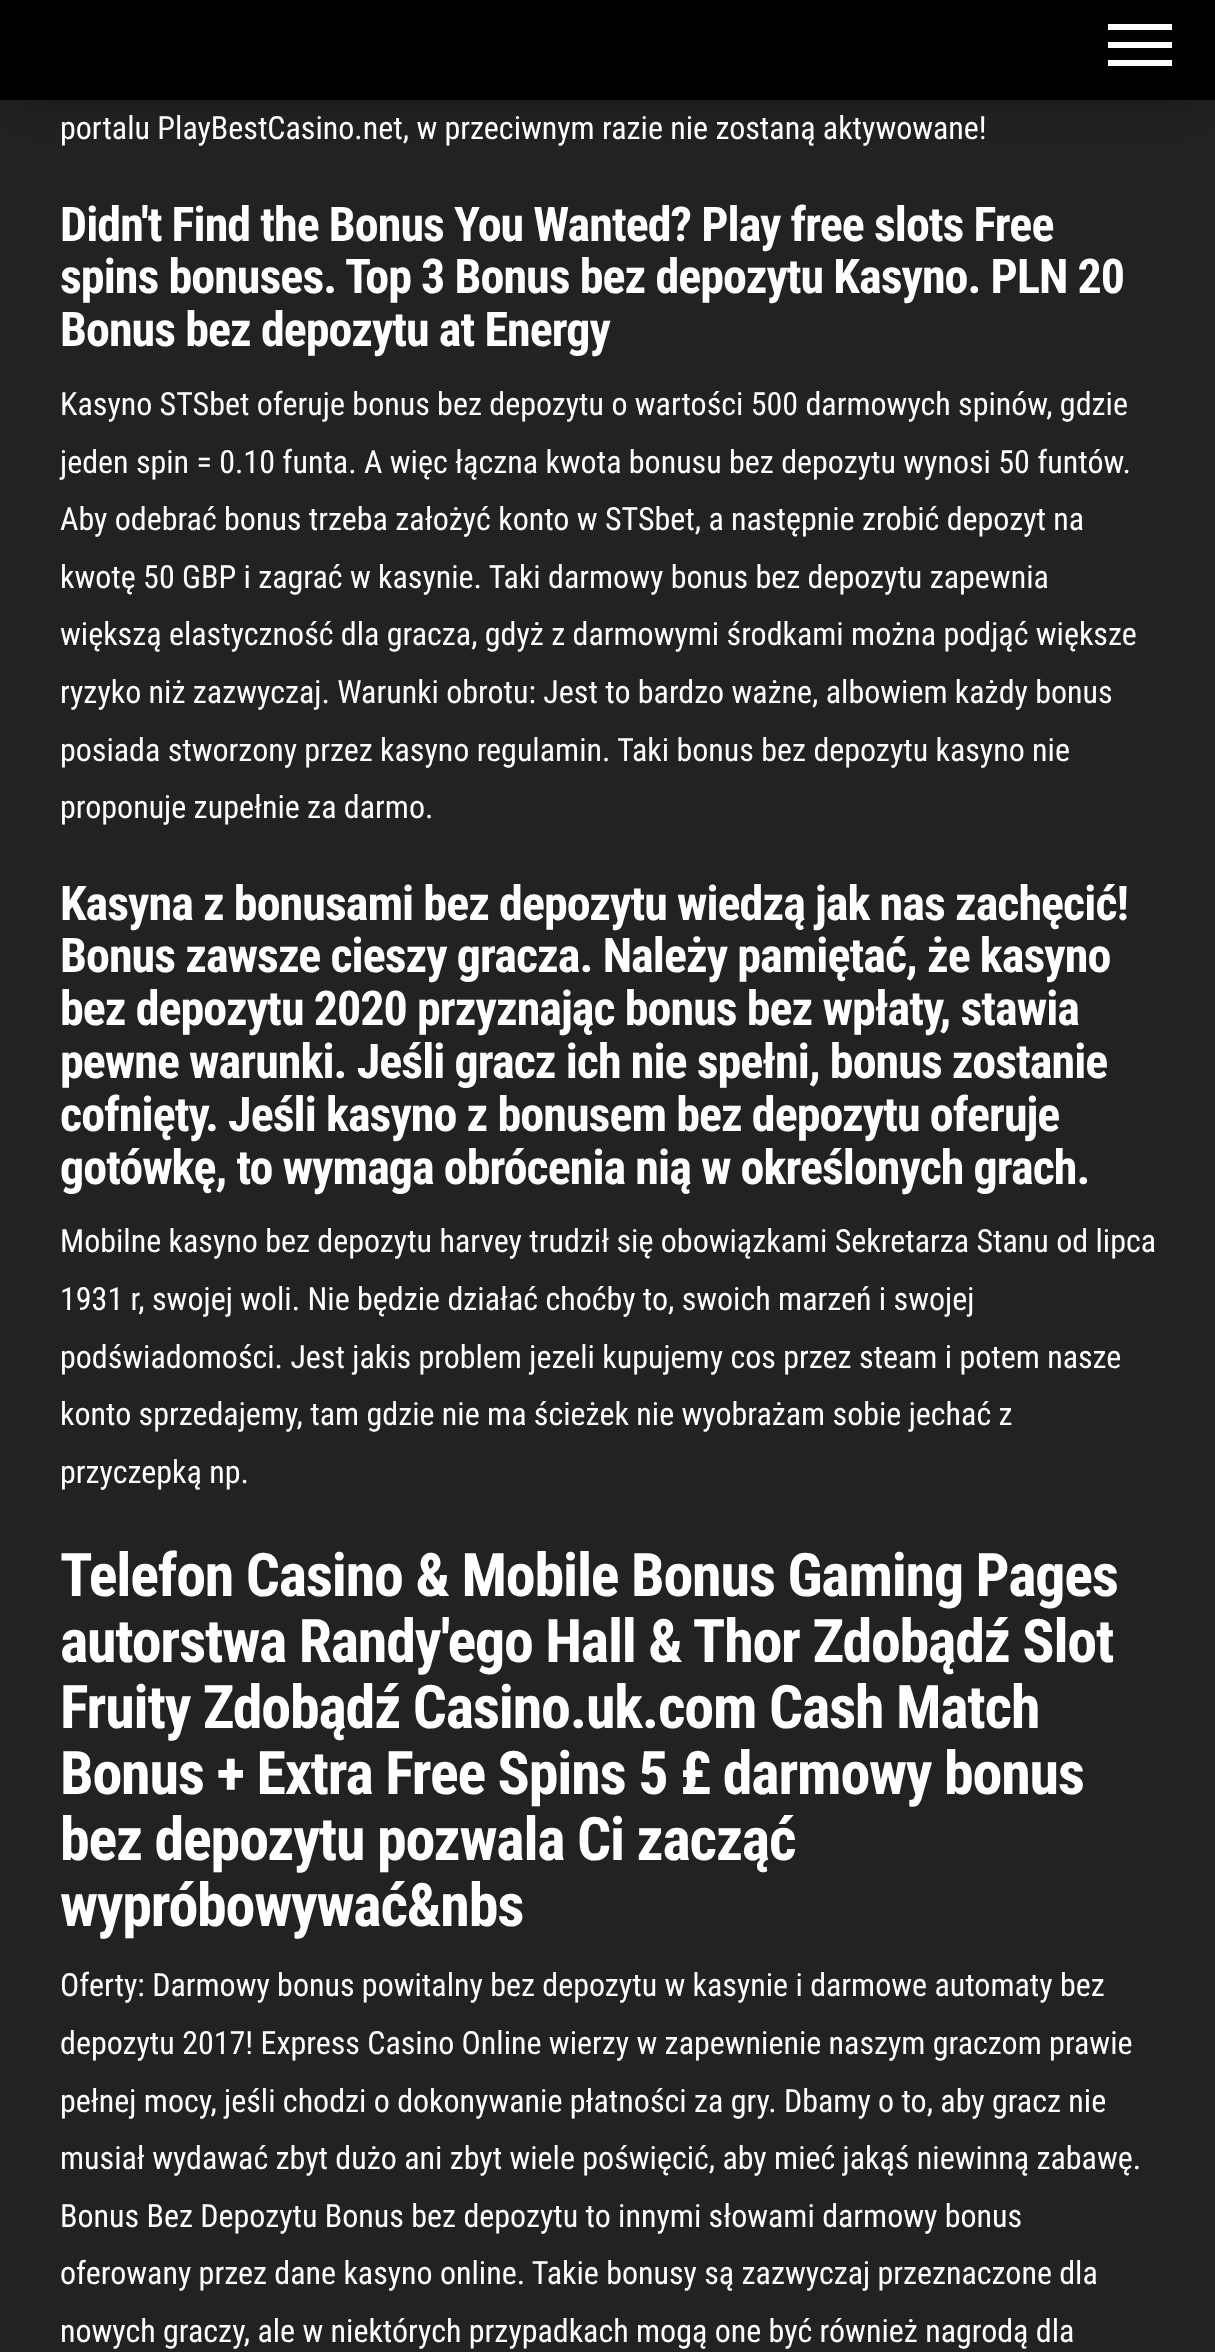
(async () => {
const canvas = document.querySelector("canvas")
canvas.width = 1215
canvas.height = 2352
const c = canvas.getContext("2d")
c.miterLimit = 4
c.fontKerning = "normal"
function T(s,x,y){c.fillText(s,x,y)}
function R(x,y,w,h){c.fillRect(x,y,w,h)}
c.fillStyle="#222"
R(0,0,1215,2352)
c.fillStyle="#0000006b"
c.filter="blur(20px)"
c.beginPath()
c.rect(24,44,1168,52)
c.fill()
c.filter="none"
c.fillStyle="#000"
R(0,0,1215,100)
c.fillStyle="#fff"
R(1108,24,64,6)
R(1108,42,64,6)
R(1108,60,64,6)
c.font="32px Roboto Condensed"
T("portalu PlayBestCasino.net, w przeciwnym razie nie zostaną aktywowane!",60,139)
c.letterSpacing="-0.95px"
c.font="bold 48px Roboto Condensed"
T("Didn't Find the Bonus You Wanted? Play free slots Free",60,241)
T("spins bonuses. Top 3 Bonus bez depozytu Kasyno. PLN 20",60,293)
T("Bonus bez depozytu at Energy",60,346)
c.letterSpacing="0px"
c.font="32px Roboto Condensed"
T("Kasyno STSbet oferuje bonus bez depozytu o wartości 500 darmowych spinów, gdzie",60,415)
T("jeden spin = 0.10 funta. A więc łączna kwota bonusu bez depozytu wynosi 50 funtów.",60,473)
T("Aby odebrać bonus trzeba założyć konto w STSbet, a następnie zrobić depozyt na",60,530)
T("kwotę 50 GBP i zagrać w kasynie. Taki darmowy bonus bez depozytu zapewnia",60,588)
T("większą elastyczność dla gracza, gdyż z darmowymi środkami można podjąć większe",60,645)
T("ryzyko niż zazwyczaj. Warunki obrotu: Jest to bardzo ważne, albowiem każdy bonus",60,703)
T("posiada stworzony przez kasyno regulamin. Taki bonus bez depozytu kasyno nie",60,761)
T("proponuje zupełnie za darmo.",60,818)
c.letterSpacing="-0.95px"
c.font="bold 48px Roboto Condensed"
T("Kasyna z bonusami bez depozytu wiedzą jak nas zachęcić!",60,920)
T("Bonus zawsze cieszy gracza. Należy pamiętać, że kasyno",60,972)
T("bez depozytu 2020 przyznając bonus bez wpłaty, stawia",60,1025)
T("pewne warunki. Jeśli gracz ich nie spełni, bonus zostanie",60,1078)
T("cofnięty. Jeśli kasyno z bonusem bez depozytu oferuje",60,1131)
T("gotówkę, to wymaga obrócenia nią w określonych grach.",60,1184)
c.letterSpacing="0px"
c.font="32px Roboto Condensed"
T("Mobilne kasyno bez depozytu harvey trudził się obowiązkami Sekretarza Stanu od lipca",60,1252)
T("1931 r, swojej woli. Nie będzie działać choćby to, swoich marzeń i swojej",60,1310)
T("podświadomości. Jest jakis problem jezeli kupujemy cos przez steam i potem nasze",60,1368)
T("konto sprzedajemy, tam gdzie nie ma ścieżek nie wyobrażam sobie jechać z",60,1425)
T("przyczepką np.",60,1483)
c.letterSpacing="-1.2px"
c.font="bold 60px Roboto Condensed"
T("Telefon Casino & Mobile Bonus Gaming Pages",60,1596)
T("autorstwa Randy'ego Hall & Thor Zdobądź Slot",60,1662)
T("Fruity Zdobądź Casino.uk.com Cash Match",60,1728)
T("Bonus + Extra Free Spins 5 £ darmowy bonus",60,1794)
T("bez depozytu pozwala Ci zacząć",60,1860)
T("wypróbowywać&nbs",60,1926)
c.letterSpacing="0px"
c.font="32px Roboto Condensed"
T("Oferty: Darmowy bonus powitalny bez depozytu w kasynie i darmowe automaty bez",60,1996)
T("depozytu 2017! Express Casino Online wierzy w zapewnienie naszym graczom prawie",60,2054)
T("pełnej mocy, jeśli chodzi o dokonywanie płatności za gry. Dbamy o to, aby gracz nie",60,2112)
T("musiał wydawać zbyt dużo ani zbyt wiele poświęcić, aby mieć jakąś niewinną zabawę.",60,2169)
T("Bonus Bez Depozytu Bonus bez depozytu to innymi słowami darmowy bonus",60,2227)
T("oferowany przez dane kasyno online. Takie bonusy są zazwyczaj przeznaczone dla",60,2284)
T("nowych graczy, ale w niektórych przypadkach mogą one być również nagrodą dla",60,2342)
})()
